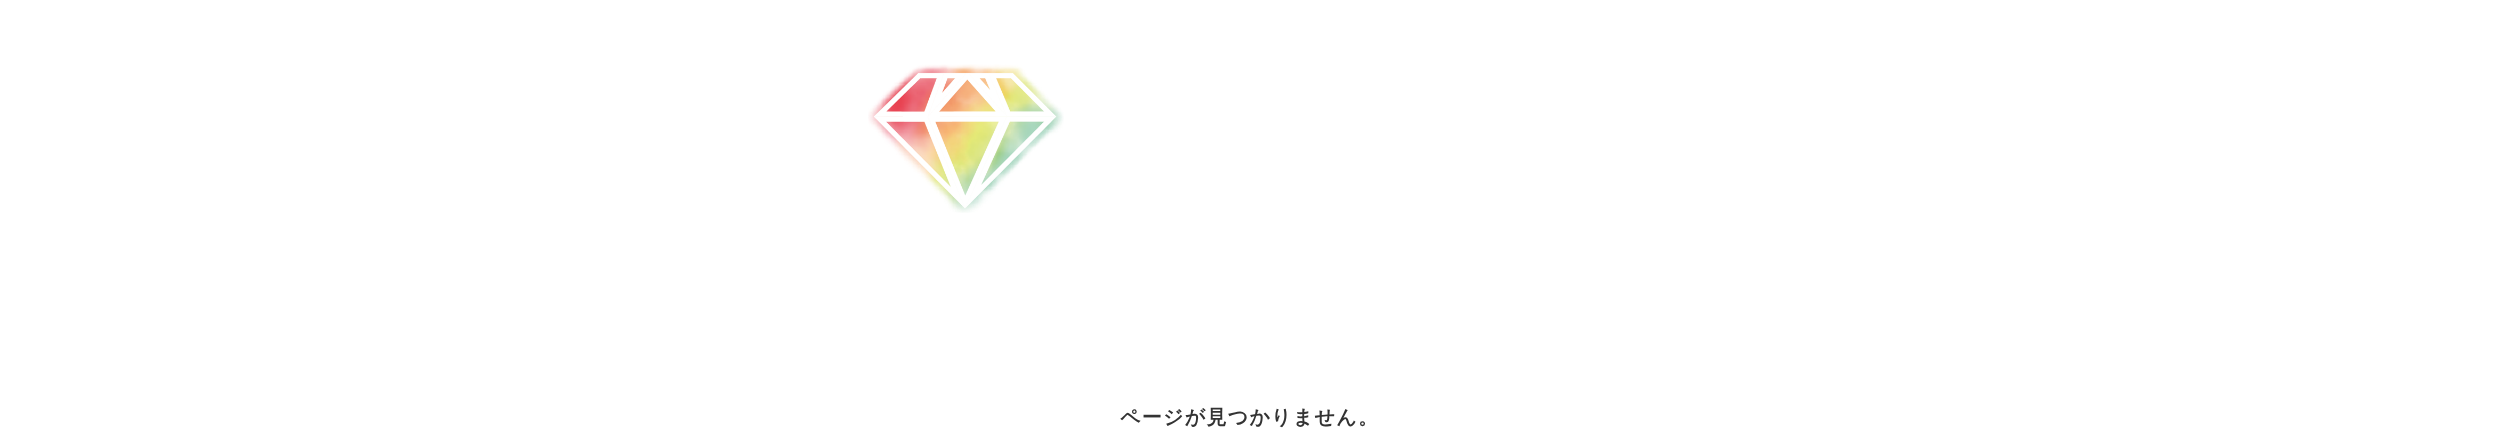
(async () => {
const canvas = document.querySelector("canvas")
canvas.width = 2500
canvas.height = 442
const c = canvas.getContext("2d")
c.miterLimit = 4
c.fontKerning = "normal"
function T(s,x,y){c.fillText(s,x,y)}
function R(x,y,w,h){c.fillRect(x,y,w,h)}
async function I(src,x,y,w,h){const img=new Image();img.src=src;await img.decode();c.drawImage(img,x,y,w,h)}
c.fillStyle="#fff"
R(0,0,2500,442)
await I("1.png",868,64,196,149)
c.letterSpacing="1.25px"
c.font="bold 20px WenQuanYi Zen Hei"
c.fillStyle="#333"
T("ページが見つかりません。",1120,424)
})()
